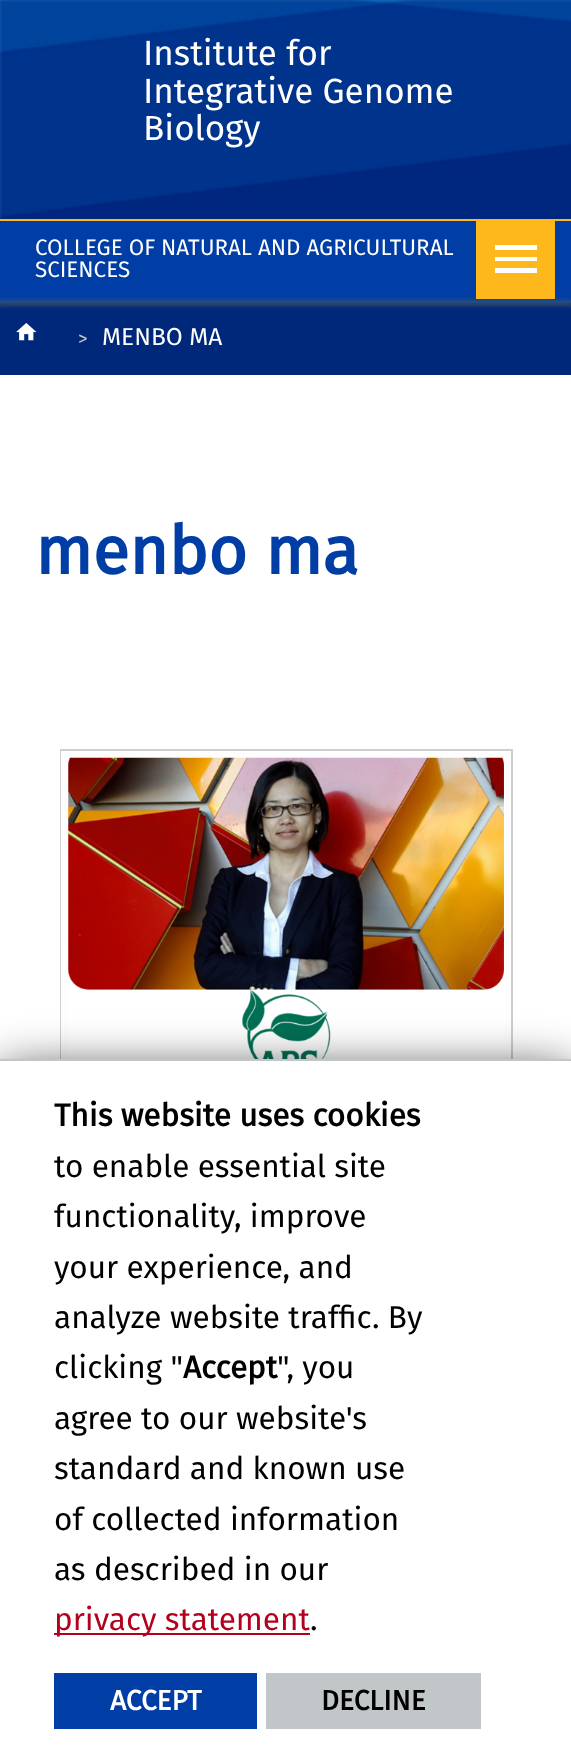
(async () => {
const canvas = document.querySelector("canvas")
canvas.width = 571
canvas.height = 1759
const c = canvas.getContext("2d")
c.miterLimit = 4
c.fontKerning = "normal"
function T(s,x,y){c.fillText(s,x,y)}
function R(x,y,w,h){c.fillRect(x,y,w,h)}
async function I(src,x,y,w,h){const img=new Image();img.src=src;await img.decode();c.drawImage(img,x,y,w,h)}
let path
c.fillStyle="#fff"
R(0,0,571,1759)
await I("1.png",0,0,571,219)
c.fillStyle="#ffb81c"
R(0,219,571,2)
c.font="35px Fira Sans"
c.fillStyle="#fff"
T("Institute for",143,65)
T("Integrative Genome",143,103)
T("Biology",143,140)
c.fillStyle="#003da5"
R(0,221,571,82)
c.font="22.4px Fira Sans"
c.fillStyle="#fff"
T("COLLEGE OF NATURAL AND AGRICULTURAL",35,255)
T("SCIENCES",35,277)
c.fillStyle="#00287a"
R(0,303,571,72)
c.fillStyle="#455a64"
c.filter="blur(2.5px)"
c.beginPath()
c.rect(-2,301,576,4)
c.fill()
c.filter="none"
c.fillStyle="#ffb81c"
R(476,221,79,78)
c.fillStyle="#fefefe"
path = new Path2D("M495 245h42v5h-42zm0 12h42v4h-42zm0 11h42v5h-42z")
c.fill(path)
await I("2.png",16,323,21,18)
c.font="19px Fira Sans"
c.fillStyle="#cacaca"
T(">",78,345)
c.font="24.5px Fira Sans"
c.fillStyle="#fff"
T("MENBO MA",102,345)
c.font="bold 67px Fira Sans"
c.fillStyle="#003da5"
T("menbo ma",35,574)
c.strokeStyle="#cecece"
c.lineWidth=2
c.strokeRect(61,750,451,341)
c.strokeStyle="#fefefe"
c.lineWidth=7
c.strokeRect(64.5,754.5,443,332)
await I("3.png",68,757,436,302)
c.fillStyle="#020203"
c.filter="blur(26px)"
c.beginPath()
c.rect(0,1076,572,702)
c.fill()
c.filter="none"
c.fillStyle="#fff"
R(0,1061,571,698)
c.fillStyle="#c1c6c8"
R(0,1059,571,2)
c.font="bold 31.5px Fira Sans"
c.fillStyle="#000"
T("This website uses cookies",54,1126)
c.font="31.5px Fira Sans"
T("to enable essential site",54,1177)
T("functionality, improve",54,1227)
T("your experience, and",54,1278)
T("analyze website traffic. By",54,1328)
T("clicking \"",54,1378)
c.font="bold 31.5px Fira Sans"
T("Accept",183,1378)
c.font="31.5px Fira Sans"
T("\", you",277,1378)
T("agree to our website's",54,1429)
T("standard and known use",54,1479)
T("of collected information",54,1530)
T("as described in our",54,1580)
c.fillStyle="#b4001f"
R(54,1633,256,2)
T("privacy statement",54,1630)
c.fillStyle="#000"
T(".",310,1630)
c.fillStyle="#003da5"
R(54,1673,203,56)
c.font="bold 28px Fira Sans"
c.fillStyle="#fff"
T("ACCEPT",110,1710)
c.fillStyle="#c1c6c8"
R(266,1673,215,56)
c.fillStyle="#000"
T("DECLINE",321,1710)
})()
